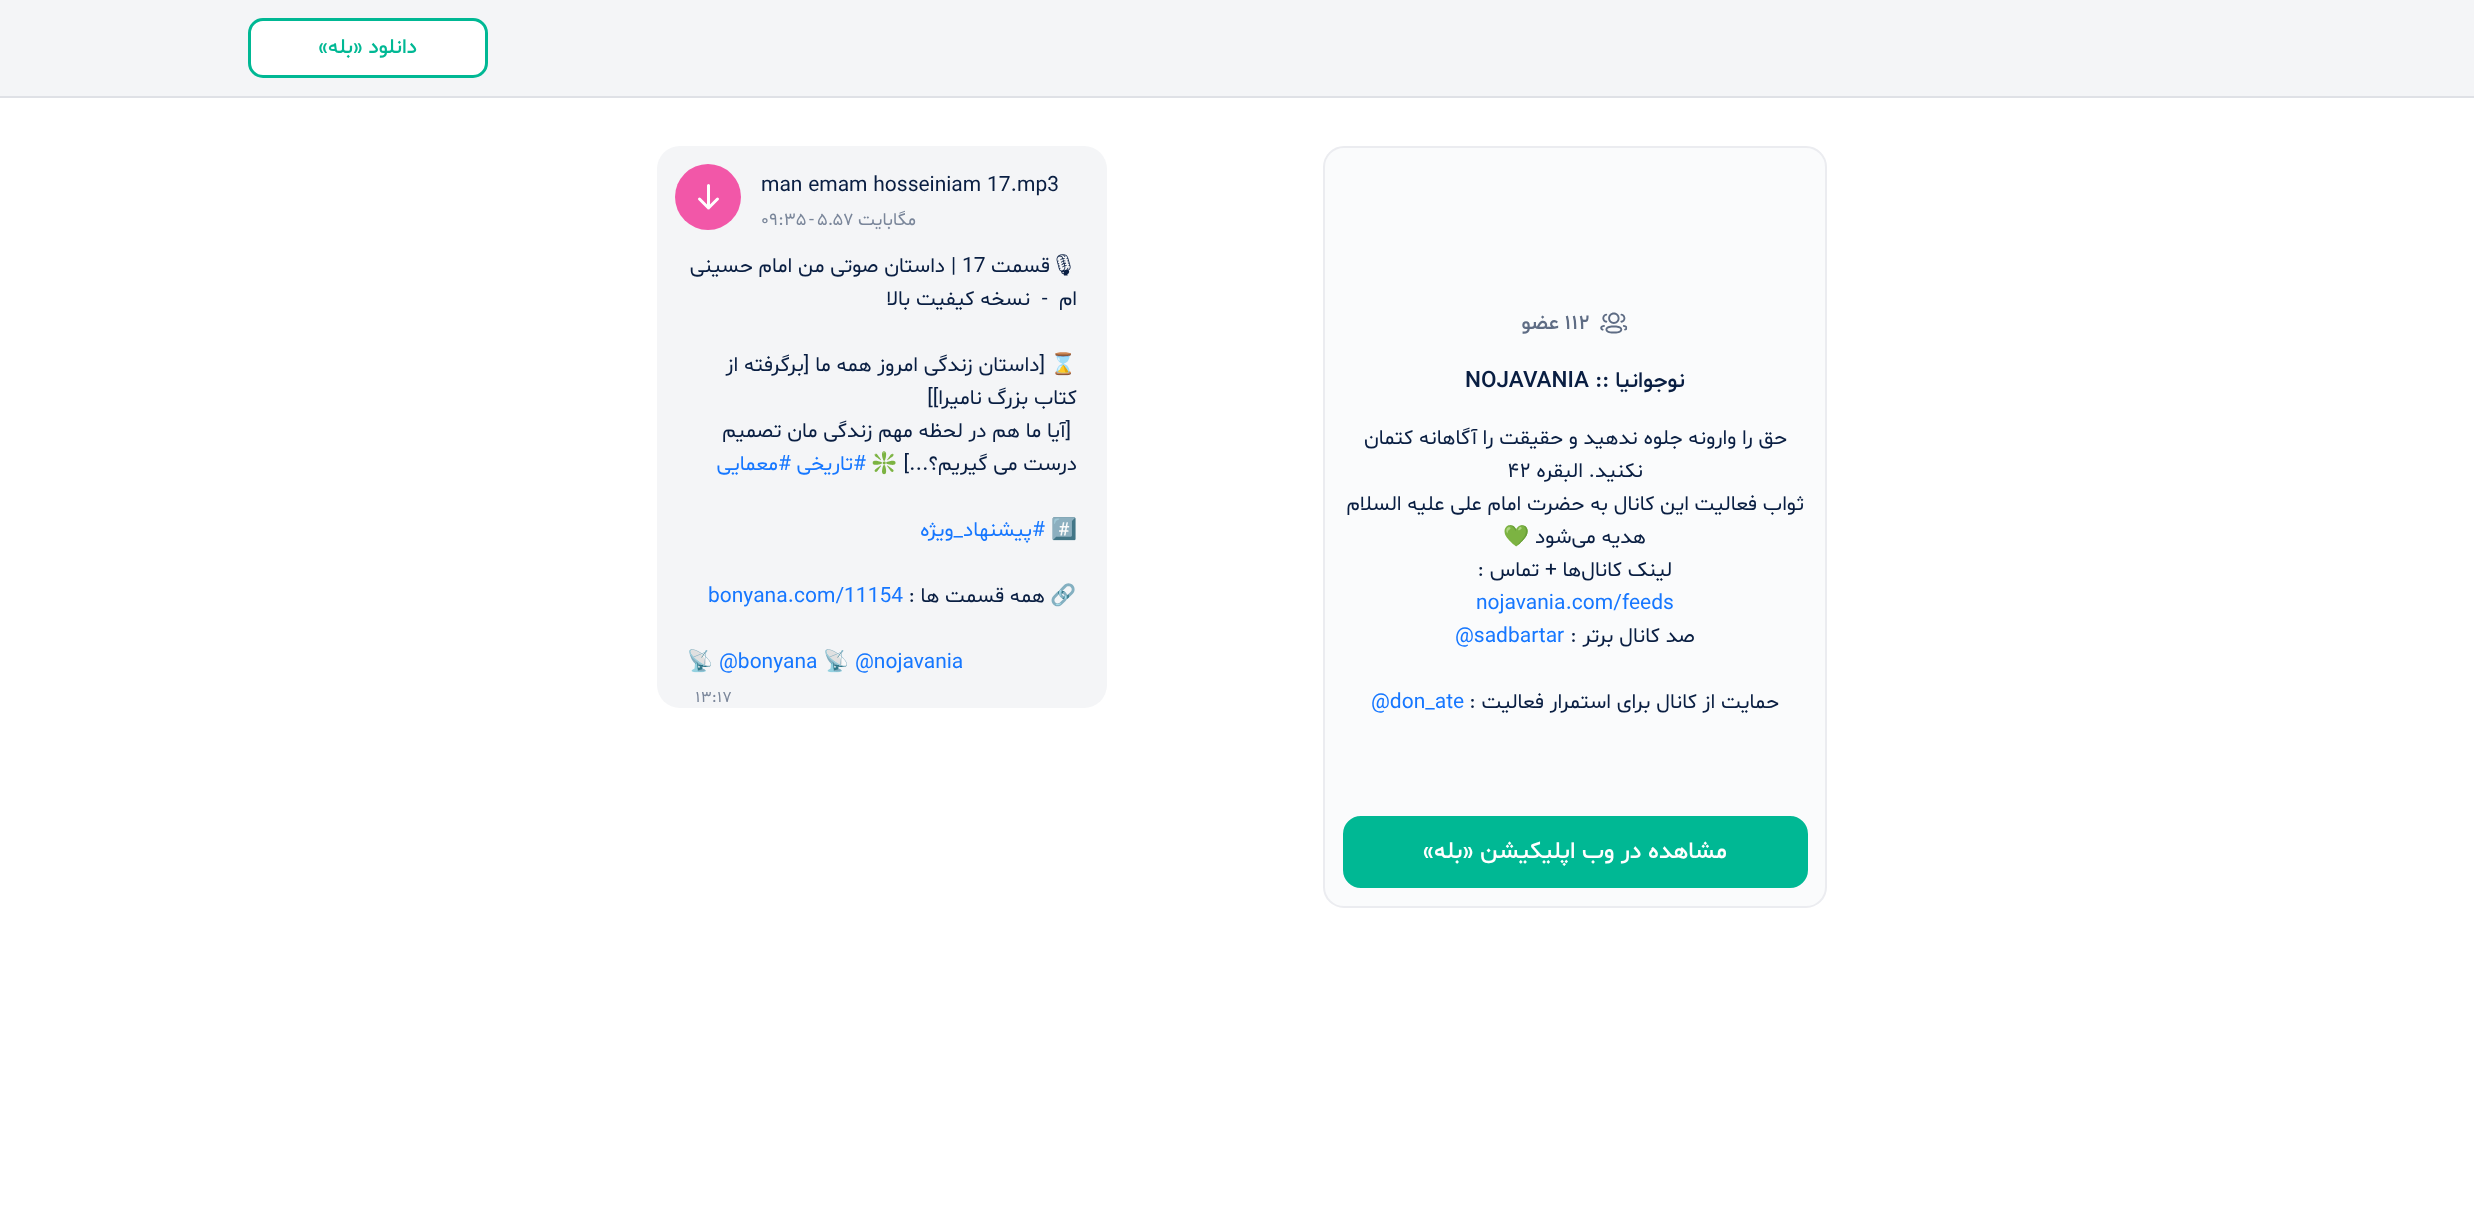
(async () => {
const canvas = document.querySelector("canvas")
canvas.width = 2474
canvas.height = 1227
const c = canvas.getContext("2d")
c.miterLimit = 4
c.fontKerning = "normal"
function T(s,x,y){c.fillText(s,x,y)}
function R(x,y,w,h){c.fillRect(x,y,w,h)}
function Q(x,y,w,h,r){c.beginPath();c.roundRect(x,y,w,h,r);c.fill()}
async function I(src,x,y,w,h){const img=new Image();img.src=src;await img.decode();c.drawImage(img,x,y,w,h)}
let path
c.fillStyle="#fff"
R(0,0,2474,1227)
c.fillStyle="#f4f5f7"
R(0,0,2474,96)
c.fillStyle="#dfe1e6"
R(0,96,2474,2)
c.fillStyle="#fff"
c.beginPath()
c.roundRect(249.5,19.5,237,57,13.5)
c.fill()
c.strokeStyle="#00b894"
c.lineWidth=3
c.stroke()
c.direction="rtl"
c.font="500 21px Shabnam"
c.fillStyle="#00b894"
T("دانلود «بله»",417,53)
c.fillStyle="#fafbfc"
c.beginPath()
c.roundRect(1324,147,502,760,20)
c.fill()
c.strokeStyle="#ebecf0"
c.lineWidth=2
c.stroke()
await I("1.png",1600,312,28,22)
c.direction="ltr"
c.fillStyle="#5e6c84"
T("۱۱۲",1565,329)
c.direction="rtl"
T("عضو",1559,329)
c.font="500 22.5px Shabnam"
c.fillStyle="#091e42"
T("نوجوانیا ::",1685,387)
c.direction="ltr"
T("NOJAVANIA",1465,387)
c.direction="rtl"
c.font="21px Shabnam"
T("حق را وارونه جلوه ندهید و حقیقت را آگاهانه کتمان",1787,444)
T("نکنید. البقره",1643,477)
c.direction="ltr"
T("۴۲",1507,477)
c.direction="rtl"
T("ثواب فعالیت این کانال به حضرت امام علی علیه السلام",1804,510)
T("هدیه می‌شود",1646,543)
c.font="21px Noto Color Emoji"
T("💚",1530,543)
c.font="21px Shabnam"
T("لینک کانال‌ها + تماس :",1672,576)
c.direction="ltr"
c.fillStyle="#1677ff"
T("nojavania.com/feeds",1476,609)
c.direction="rtl"
c.fillStyle="#091e42"
T("صد کانال برتر :",1695,642)
c.direction="ltr"
c.fillStyle="#1677ff"
T("@sadbartar",1455,642)
c.direction="rtl"
c.fillStyle="#091e42"
T("حمایت از کانال برای استمرار فعالیت :",1779,708)
c.direction="ltr"
c.fillStyle="#1677ff"
T("@don_ate",1371,708)
c.fillStyle="#00b894"
c.beginPath()
c.roundRect(1344.5,817.5,462,69,16.5)
c.fill()
c.strokeStyle="#00b894"
c.lineWidth=3
c.stroke()
c.direction="rtl"
c.font="500 24px Shabnam"
c.fillStyle="#fff"
T("مشاهده در وب ‌اپلیکیشن «بله»",1727,858)
c.fillStyle="#f4f5f7"
Q(657,146,450,562,23)
c.direction="ltr"
c.font="21px Shabnam"
c.fillStyle="#091e42"
T("man emam hosseiniam 17.mp3",761,191)
c.direction="rtl"
c.font="18px Shabnam"
c.fillStyle="#7a869a"
T("مگابایت",916,225)
c.direction="ltr"
T("۵.۵۷",817,225)
T("-",809,225)
T("۰۹:۳۵",761,225)
c.fillStyle="#f257a8"
c.beginPath()
c.arc(708,197,33,0,7)
c.fill()
path = new Path2D("M708.5 208v-22.5m9 13.5l-9 9l-9-9")
c.strokeStyle="#fff"
c.lineCap="round"
c.lineJoin="round"
c.stroke(path)
c.direction="rtl"
c.font="21px Noto Emoji"
c.fillStyle="#091e42"
T("🎙",1077,272)
c.font="21px Shabnam"
T("قسمت",1050,272)
c.direction="ltr"
T("17",962,272)
c.direction="rtl"
T("| داستان صوتی من امام حسینی",956,272)
T("ام  -  نسخه کیفیت بالا",1077,305)
c.font="21px Noto Color Emoji"
T("⌛️",1077,371)
c.font="21px Shabnam"
T("[داستان زندگی امروز همه ما [برگرفته از",1045,371)
T("کتاب بزرگ نامیرا]]",1077,404)
T("[آیا ما هم در لحظه مهم زندگی مان تصمیم",1071,437)
T("درست می گیریم؟...]",1077,470)
c.font="21px Noto Color Emoji"
T("❇️",898,470)
c.font="21px Shabnam"
c.fillStyle="#1677ff"
T("#تاریخی",866,470)
T("#معمایی",791,470)
c.direction="ltr"
c.font="21px Noto Color Emoji"
T("#️⃣",1051,536)
c.direction="rtl"
c.font="21px Shabnam"
T("#پیشنهاد_ویژه",1045,536)
c.font="21px Noto Color Emoji"
c.fillStyle="#091e42"
T("🔗",1077,602)
c.font="21px Shabnam"
T("همه قسمت ها :",1045,602)
c.direction="ltr"
c.fillStyle="#1677ff"
T("bonyana.com/11154",708,602)
T("@nojavania",855,668)
c.font="21px Noto Color Emoji"
c.fillStyle="#091e42"
T("📡",823,668)
c.font="21px Shabnam"
c.fillStyle="#1677ff"
T("@bonyana",719,668)
c.font="21px Noto Color Emoji"
c.fillStyle="#091e42"
T("📡",687,668)
c.save()
c.beginPath()
c.rect(675,692,399,15)
c.clip()
c.font="16.5px Shabnam"
c.fillStyle="#7a869a"
T("۱۳:۱۷",695,702)
c.restore()
})()
